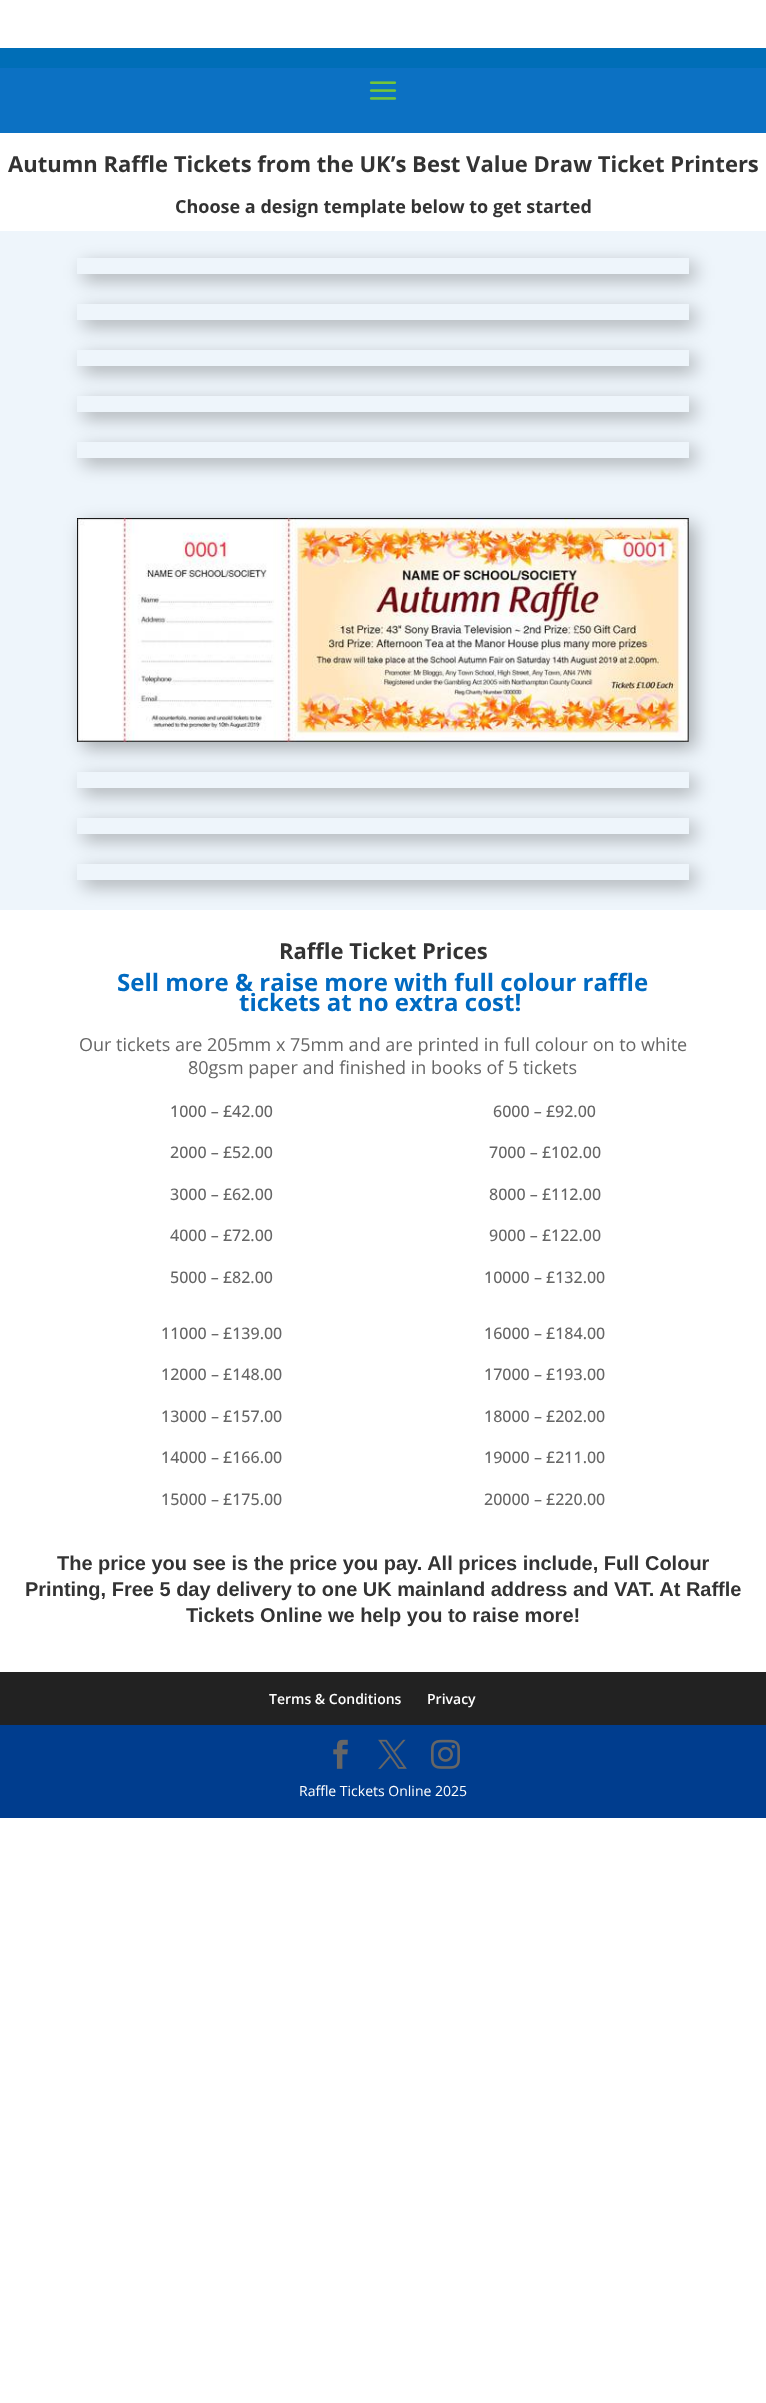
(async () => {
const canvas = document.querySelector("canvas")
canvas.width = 766
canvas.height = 2403
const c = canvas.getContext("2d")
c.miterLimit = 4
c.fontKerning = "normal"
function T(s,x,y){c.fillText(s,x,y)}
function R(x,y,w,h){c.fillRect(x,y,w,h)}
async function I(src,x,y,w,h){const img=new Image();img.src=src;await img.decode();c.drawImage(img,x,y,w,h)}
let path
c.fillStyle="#fff"
R(0,0,766,2403)
c.fillStyle="#006eb7"
R(0,48,766,20)
c.fillStyle="#0c71c3"
R(0,68,766,65)
await I("1.png",369,81,28,19)
c.font="bold 22px Open Sans"
c.fillStyle="#333"
T("Autumn Raffle Tickets from the UK’s Best Value Draw Ticket Printers",8,172)
c.font="bold 18px Open Sans"
T("Choose a design template below to get started",175,213)
c.fillStyle="#eef5fb"
R(0,231,766,679)
c.save()
path = new Path2D("M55 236h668v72h-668zm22 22h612v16h-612z")
c.clip(path,"evenodd")
c.fillStyle="#0000004d"
c.filter="blur(9px)"
c.beginPath()
c.rect(83,264,612,16)
c.fill()
c.filter="none"
c.restore()
c.save()
path = new Path2D("M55 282h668v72h-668zm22 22h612v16h-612z")
c.clip(path,"evenodd")
c.fillStyle="#0000004d"
c.filter="blur(9px)"
c.beginPath()
c.rect(83,310,612,16)
c.fill()
c.filter="none"
c.restore()
c.save()
path = new Path2D("M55 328h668v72h-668zm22 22h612v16h-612z")
c.clip(path,"evenodd")
c.fillStyle="#0000004d"
c.filter="blur(9px)"
c.beginPath()
c.rect(83,356,612,16)
c.fill()
c.filter="none"
c.restore()
c.save()
path = new Path2D("M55 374h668v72h-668zm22 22h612v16h-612z")
c.clip(path,"evenodd")
c.fillStyle="#0000004d"
c.filter="blur(9px)"
c.beginPath()
c.rect(83,402,612,16)
c.fill()
c.filter="none"
c.restore()
c.save()
path = new Path2D("M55 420h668v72h-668zm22 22h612v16h-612z")
c.clip(path,"evenodd")
c.fillStyle="#0000004d"
c.filter="blur(9px)"
c.beginPath()
c.rect(83,448,612,16)
c.fill()
c.filter="none"
c.restore()
c.fillStyle="#0000004d"
c.filter="blur(9px)"
c.beginPath()
c.rect(83,524,612,224)
c.fill()
c.filter="none"
await I("2.png",77,518,612,224)
c.save()
path = new Path2D("M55 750h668v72h-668zm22 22h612v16h-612z")
c.clip(path,"evenodd")
c.filter="blur(9px)"
c.beginPath()
c.rect(83,778,612,16)
c.fill()
c.filter="none"
c.restore()
c.save()
path = new Path2D("M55 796h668v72h-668zm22 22h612v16h-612z")
c.clip(path,"evenodd")
c.filter="blur(9px)"
c.beginPath()
c.rect(83,824,612,16)
c.fill()
c.filter="none"
c.restore()
c.save()
path = new Path2D("M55 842h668v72h-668zm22 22h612v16h-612z")
c.clip(path,"evenodd")
c.filter="blur(9px)"
c.beginPath()
c.rect(83,870,612,16)
c.fill()
c.filter="none"
c.restore()
c.font="bold 22px Open Sans"
c.fillStyle="#333"
T("Raffle Ticket Prices",279,959)
c.font="bold 24px Open Sans"
c.fillStyle="#006ac1"
T("Sell more & raise more with full colour raffle",117,991)
T("tickets at no extra cost!",239,1011)
c.font="18px Open Sans"
c.fillStyle="#666"
T("Our tickets are 205mm x 75mm and are printed in full colour on to white",79,1051)
T("80gsm paper and finished in books of 5 tickets",188,1074)
c.font="500 16px Open Sans"
T("1000 – £42.00",170,1117)
T("2000 – £52.00",170,1158)
T("3000 – £62.00",170,1200)
T("4000 – £72.00",170,1241)
T("5000 – £82.00",170,1283)
T("6000 – £92.00",493,1117)
T("7000 – £102.00",489,1158)
T("8000 – £112.00",489,1200)
T("9000 – £122.00",489,1241)
T("10000 – £132.00",484,1283)
T("11000 – £139.00",161,1339)
T("12000 – £148.00",161,1380)
T("13000 – £157.00",161,1422)
T("14000 – £166.00",161,1463)
T("15000 – £175.00",161,1505)
T("16000 – £184.00",484,1339)
T("17000 – £193.00",484,1380)
T("18000 – £202.00",484,1422)
T("19000 – £211.00",484,1463)
T("20000 – £220.00",484,1505)
c.font="bold 20px Liberation Sans"
c.fillStyle="#333"
T("The price you see is the price you pay. All prices include, Full Colour",57,1570)
T("Printing, Free 5 day delivery to one UK mainland address and VAT. At Raffle",25,1596)
T("Tickets Online we help you to raise more!",186,1622)
c.fillStyle="#222"
R(0,1672,766,53)
c.font="600 14px Open Sans"
c.fillStyle="#fff"
T("Terms & Conditions",269,1704)
T("Privacy",427,1704)
c.fillStyle="#003d8e"
R(0,1725,766,93)
await I("3.png",333,1739,15,30)
await I("4.png",378,1739,29,30)
await I("5.png",431,1739,29,30)
c.font="14px Open Sans"
c.fillStyle="#fff"
T("Raffle Tickets Online 2025",299,1796)
})()
